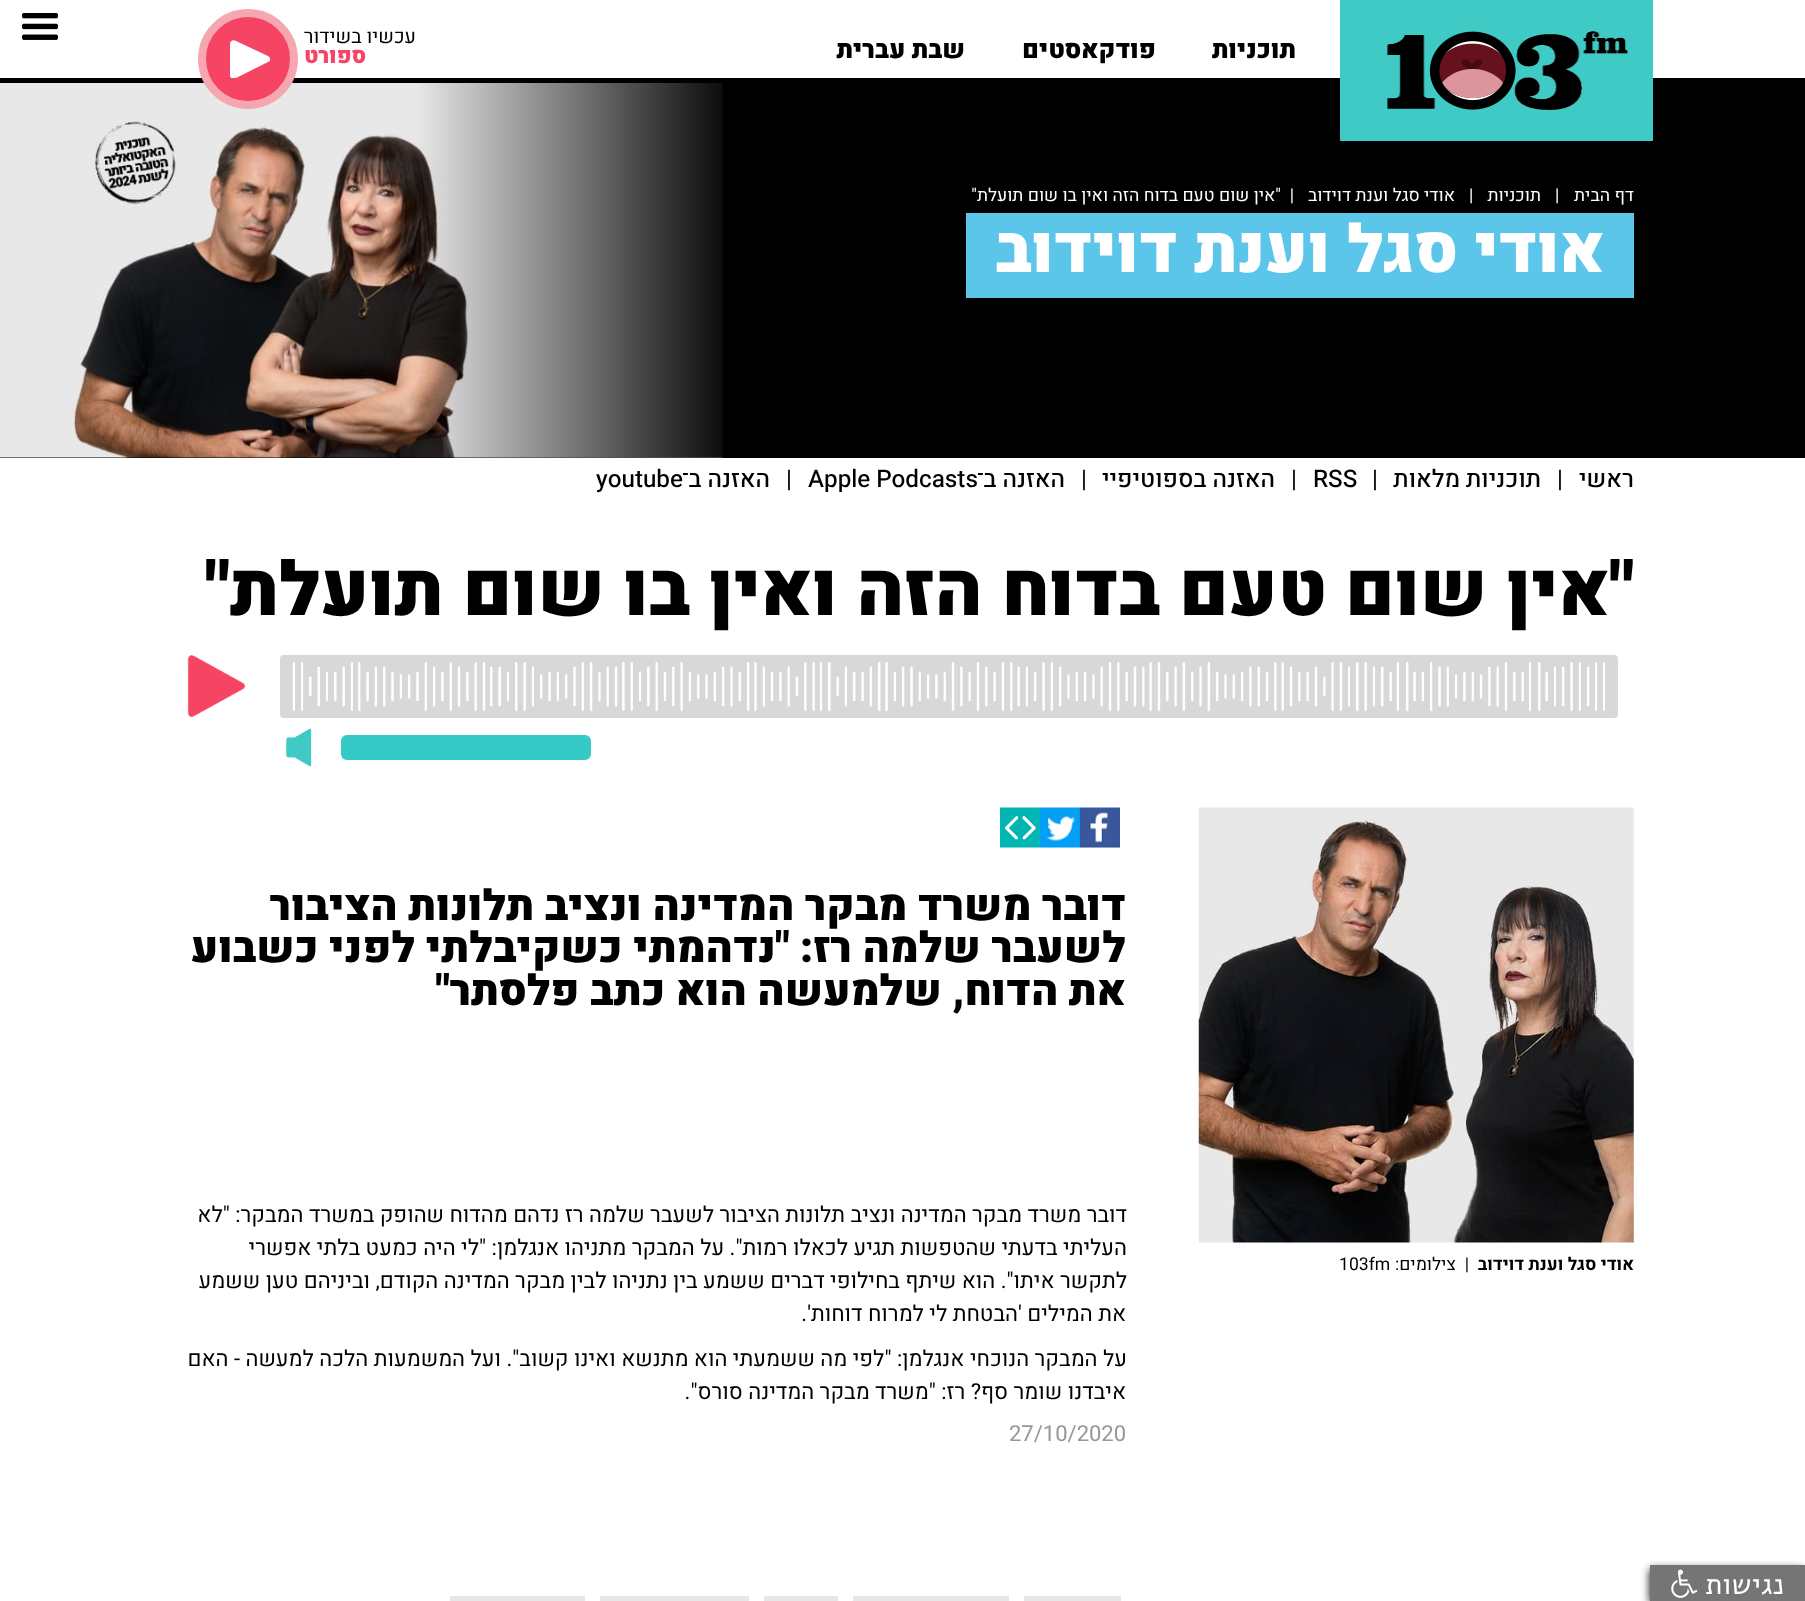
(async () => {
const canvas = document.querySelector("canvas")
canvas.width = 1805
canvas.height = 1601
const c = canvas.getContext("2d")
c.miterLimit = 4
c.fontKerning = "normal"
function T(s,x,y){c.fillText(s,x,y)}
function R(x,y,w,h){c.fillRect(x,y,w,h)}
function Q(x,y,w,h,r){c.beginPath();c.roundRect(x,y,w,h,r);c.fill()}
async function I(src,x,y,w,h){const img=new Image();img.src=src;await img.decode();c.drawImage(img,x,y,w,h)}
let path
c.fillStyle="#fff"
R(0,0,1805,1601)
await I("1.png",22,13,36,27)
c.fillStyle="#000"
R(0,78,1805,380)
await I("5.png",0,83,1805,375)
c.fillStyle="#3fcac5"
R(1340,0,313,141)
await I("2.png",1514,31,115,79)
await I("4.png",1387,35,49,74)
await I("3.png",1429,31,87,79)
c.direction="rtl"
c.font="900 25.25px Heebo"
c.fillStyle="#000"
T("תוכניות",1296,58)
T("פודקאסטים",1156,58)
T("שבת עברית",965,58)
c.font="19.75px Heebo"
T("עכשיו בשידור",416,43)
c.font="900 22px Heebo"
c.fillStyle="#f64564"
T("ספורט",366,63)
c.beginPath()
c.arc(248,59,46,0,7)
c.fill()
c.strokeStyle="#f5a6af"
c.lineWidth=8
c.stroke()
c.save()
c.beginPath()
c.rect(230,40,40,38)
c.clip()
c.fillStyle="#fff"
path = new Path2D("M236 78c-3 2-6 0-6-3v-31c0-3 3-5 6-3l32 15c3 2 3 5 0 6z")
c.fill(path)
c.restore()
c.font="17.6px Heebo"
c.fillStyle="#fff"
T("דף הבית",1634,201)
c.direction="ltr"
T("|",1555,201)
c.direction="rtl"
T("תוכניות",1541,201)
c.direction="ltr"
T("|",1469,201)
c.direction="rtl"
T("אודי סגל וענת דוידוב",1455,201)
T("|  \"אין שום טעם בדוח הזה ואין בו שום תועלת\"",1294,201)
c.fillStyle="#5bc5ea"
R(966,213,668,85)
c.font="900 66px Heebo"
c.fillStyle="#fff"
T("אודי סגל וענת דוידוב",1605,272)
c.font="500 24.25px Heebo"
c.fillStyle="#000"
T("ראשי",1634,487)
c.direction="ltr"
c.font="24.25px Heebo"
T("|",1557,487)
c.direction="rtl"
c.font="500 24.25px Heebo"
T("תוכניות מלאות",1541,487)
c.direction="ltr"
c.font="24.25px Heebo"
T("|",1372,487)
c.font="500 24.25px Heebo"
T("RSS",1313,487)
c.font="24.25px Heebo"
T("|",1291,487)
c.direction="rtl"
c.font="500 24.25px Heebo"
T("האזנה בספוטיפיי",1275,487)
c.direction="ltr"
c.font="24.25px Heebo"
T("|",1081,487)
c.direction="rtl"
c.font="500 24.25px Heebo"
T("האזנה ב־",1065,487)
c.direction="ltr"
T("Apple Podcasts",808,487)
c.font="24.25px Heebo"
T("|",786,487)
c.direction="rtl"
c.font="500 24.25px Heebo"
T("האזנה ב־",770,487)
c.direction="ltr"
T("youtube",596,487)
c.direction="rtl"
c.font="900 74.75px Heebo"
T("\"אין שום טעם בדוח הזה ואין בו שום תועלת\"",1634,615)
c.fillStyle="#d8d8d8"
Q(280,655,1338,63,4)
await I("6.png",292,662,1313,50)
await I("7.png",187,655,58,62)
c.fillStyle="#35cac5"
Q(341,735,250,25,6)
await I("8.png",286,728,26,39)
await I("9.png",1198,807,436,436)
c.font="bold 17.6px Heebo"
c.fillStyle="#000"
T("אודי סגל וענת דוידוב",1634,1270)
c.font="17.6px Heebo"
T("|  צילומים:",1469,1270)
c.direction="ltr"
T("103fm",1339,1270)
await I("10.png",1080,807,40,41)
await I("11.png",1040,807,40,41)
await I("12.png",1000,807,40,41)
c.direction="rtl"
c.font="900 42.5px Heebo"
T("דובר משרד מבקר המדינה ונציב תלונות הציבור",1126,920)
T("לשעבר שלמה רז: \"נדהמתי כשקיבלתי לפני כשבוע",1126,962)
T("את הדוח, שלמעשה הוא כתב פלסתר\"",1126,1005)
c.font="22px Heebo"
T("דובר משרד מבקר המדינה ונציב תלונות הציבור לשעבר שלמה רז נדהם מהדוח שהופק במשרד המבקר: \"לא",1127,1222)
T("העליתי בדעתי שהטפשות תגיע לכאלו רמות\". על המבקר מתניהו אנגלמן: \"לי היה כמעט בלתי אפשרי",1127,1255)
T("לתקשר איתו\". הוא שיתף בחילופי דברים ששמע בין נתניהו לבין מבקר המדינה הקודם, וביניהם טען ששמע",1127,1288)
T("את המילים 'הבטחת לי למרוח דוחות'.",1126,1321)
T("על המבקר הנוכחי אנגלמן: \"לפי מה ששמעתי הוא מתנשא ואינו קשוב\". ועל המשמעות הלכה למעשה - האם",1127,1366)
T("איבדנו שומר סף? רז: \"משרד מבקר המדינה סורס\".",1126,1399)
c.direction="ltr"
c.fillStyle="#979797"
T("27/10/2020",1009,1441)
c.fillStyle="#e7e7e7"
R(1024,1596,97,5)
R(853,1596,156,5)
R(764,1596,74,5)
R(600,1596,149,5)
R(450,1596,135,5)
c.fillStyle="#000"
c.filter="blur(4.5px)"
c.beginPath()
c.rect(1650,1569,153,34)
c.fill()
c.filter="none"
c.fillStyle="#757575"
R(1650,1565,155,36)
c.direction="rtl"
c.font="29px Alef"
c.fillStyle="#fff"
T("נגישות",1784,1594)
await I("13.png",1671,1569,27,29)
})()
